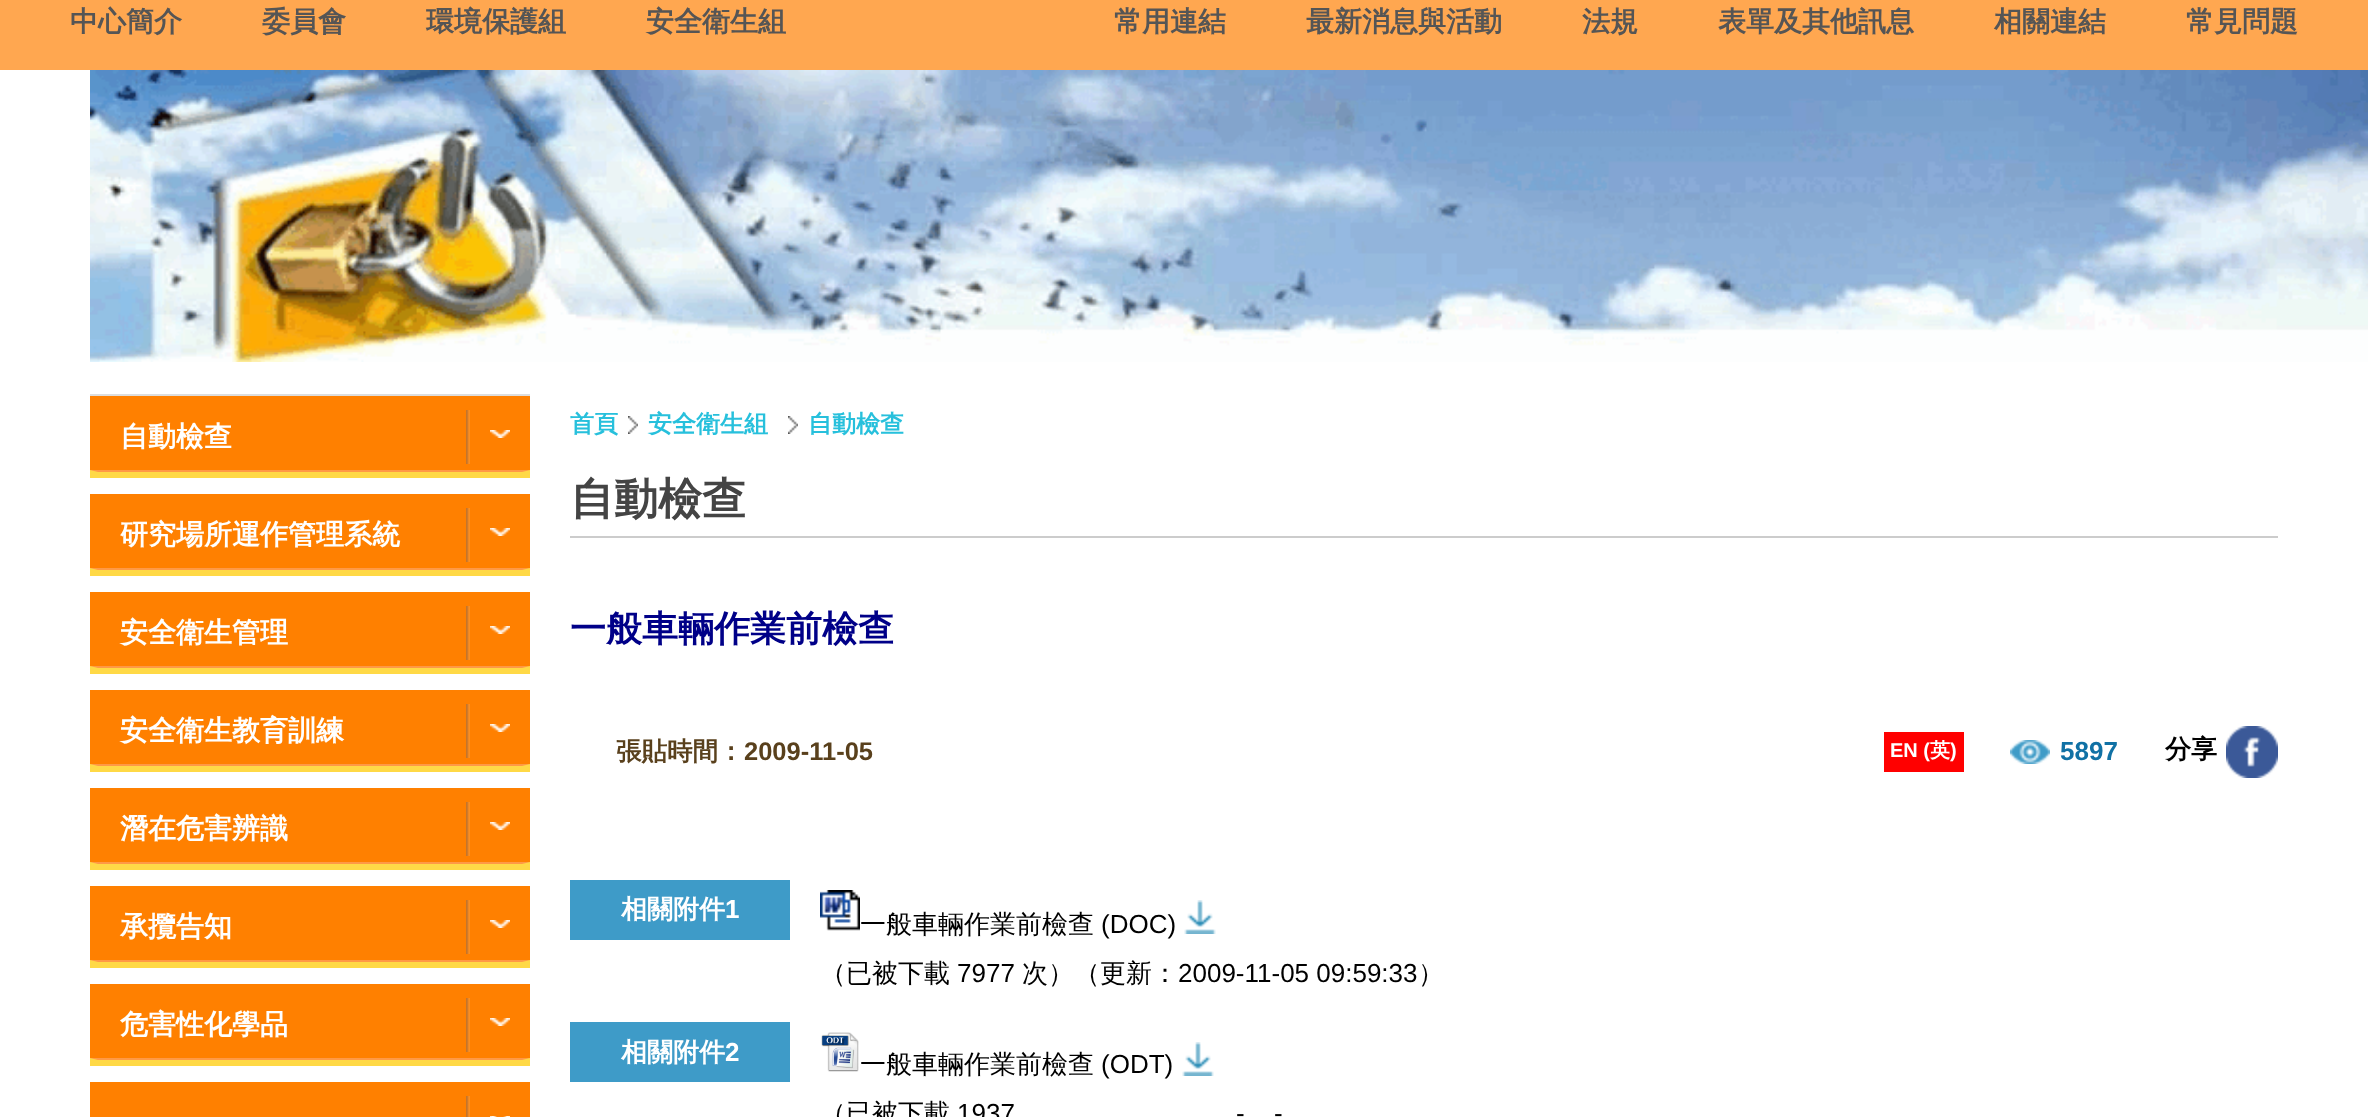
(async () => {
const canvas = document.querySelector("canvas")
canvas.width = 2368
canvas.height = 1117
const c = canvas.getContext("2d")
c.miterLimit = 4
c.fontKerning = "normal"
function T(s,x,y){c.fillText(s,x,y)}
function R(x,y,w,h){c.fillRect(x,y,w,h)}
async function I(src,x,y,w,h){const img=new Image();img.src=src;await img.decode();c.drawImage(img,x,y,w,h)}
let path
c.fillStyle="#fff"
R(0,0,2368,1117)
c.fillStyle="#ffa750"
R(0,0,2368,70)
c.font="bold 28px WenQuanYi Zen Hei"
c.fillStyle="#555"
T("中心簡介",70,31)
T("委員會",262,31)
T("環境保護組",426,31)
T("安全衛生組",646,31)
T("常用連結",1114,31)
T("最新消息與活動",1306,31)
T("法規",1582,31)
T("表單及其他訊息",1718,31)
T("相關連結",1994,31)
T("常見問題",2186,31)
await I("1.png",90,70,2278,292)
c.fillStyle="#ff8000"
R(90,396,440,74)
c.fillStyle="#ddd"
R(90,394,440,2)
c.fillStyle="#fff"
T("自動檢查",120,446)
await I("2.png",466,410,4,54)
c.fillStyle="#ffd946"
R(90,470,440,8)
c.fillStyle="#ff9946"
path = new Path2D("M90 470h440l-8 2h-424z")
c.fill(path)
await I("3.png",490,430,20,8)
c.fillStyle="#ff8000"
R(90,494,440,74)
c.fillStyle="#fff"
T("研究場所運作管理系統",120,544)
await I("2.png",466,508,4,54)
c.fillStyle="#ffd946"
R(90,568,440,8)
c.fillStyle="#ff9946"
path = new Path2D("M90 568h440l-8 2h-424z")
c.fill(path)
await I("3.png",490,528,20,8)
c.fillStyle="#ff8000"
R(90,592,440,74)
c.fillStyle="#fff"
T("安全衛生管理",120,642)
await I("2.png",466,606,4,54)
c.fillStyle="#ffd946"
R(90,666,440,8)
c.fillStyle="#ff9946"
path = new Path2D("M90 666h440l-8 2h-424z")
c.fill(path)
await I("3.png",490,626,20,8)
c.fillStyle="#ff8000"
R(90,690,440,74)
c.fillStyle="#fff"
T("安全衛生教育訓練",120,740)
await I("2.png",466,704,4,54)
c.fillStyle="#ffd946"
R(90,764,440,8)
c.fillStyle="#ff9946"
path = new Path2D("M90 764h440l-8 2h-424z")
c.fill(path)
await I("3.png",490,724,20,8)
c.fillStyle="#ff8000"
R(90,788,440,74)
c.fillStyle="#fff"
T("潛在危害辨識",120,838)
await I("2.png",466,802,4,54)
c.fillStyle="#ffd946"
R(90,862,440,8)
c.fillStyle="#ff9946"
path = new Path2D("M90 862h440l-8 2h-424z")
c.fill(path)
await I("3.png",490,822,20,8)
c.fillStyle="#ff8000"
R(90,886,440,74)
c.fillStyle="#fff"
T("承攬告知",120,936)
await I("2.png",466,900,4,54)
c.fillStyle="#ffd946"
R(90,960,440,8)
c.fillStyle="#ff9946"
path = new Path2D("M90 960h440l-8 2h-424z")
c.fill(path)
await I("3.png",490,920,20,8)
c.fillStyle="#ff8000"
R(90,984,440,74)
c.fillStyle="#fff"
T("危害性化學品",120,1034)
await I("2.png",466,998,4,54)
c.fillStyle="#ffd946"
R(90,1058,440,8)
c.fillStyle="#ff9946"
path = new Path2D("M90 1058h440l-8 2h-424z")
c.fill(path)
await I("3.png",490,1018,20,8)
c.fillStyle="#ff8000"
R(90,1082,440,35)
await I("4.png",466,1096,4,21)
await I("5.png",490,1116,20,1)
c.font="bold 24px WenQuanYi Zen Hei"
c.fillStyle="#27c0dc"
T("首頁",570,432)
await I("6.png",628,416,10,18)
T("安全衛生組",648,432)
await I("6.png",788,416,10,18)
T("自動檢查",808,432)
c.fillStyle="#ccc"
R(570,536,1708,2)
c.font="bold 44px WenQuanYi Zen Hei"
c.fillStyle="#444"
T("自動檢查",570,514)
c.font="bold 36px WenQuanYi Zen Hei"
c.fillStyle="#008"
T("一般車輛作業前檢查",570,641)
c.font="bold 25.5px WenQuanYi Zen Hei"
c.fillStyle="#59401c"
T("張貼時間：",616,760)
c.font="bold 25.5px Liberation Sans"
T("2009-11-05",744,760)
c.fillStyle="#f00"
R(1884,732,80,40)
c.font="bold 20px Liberation Sans"
c.fillStyle="#fff"
T("EN (",1890,757)
c.font="bold 20px WenQuanYi Zen Hei"
T("英",1930,757)
c.font="bold 20px Liberation Sans"
T(")",1950,757)
await I("7.png",2010,740,40,24)
c.font="bold 26px Liberation Sans"
c.fillStyle="#1071a5"
T("5897",2060,760)
c.font="bold 26px WenQuanYi Zen Hei"
c.fillStyle="#000"
T("分享",2165,758)
await I("8.png",2226,726,52,52)
c.fillStyle="#3e9bc8"
R(570,880,220,60)
c.fillStyle="#fff"
T("相關附件",621,918)
c.font="bold 26px Liberation Sans"
T("1",725,918)
await I("9.png",1184,900,32,34)
await I("10.png",820,890,40,41)
c.font="500 26px WenQuanYi Zen Hei"
c.fillStyle="#000"
T("一般車輛作業前檢查",860,933)
c.font="26px Liberation Sans"
T("(DOC)",1101,933)
c.font="500 26px WenQuanYi Zen Hei"
T("（已被下載",820,982)
c.font="26px Liberation Sans"
T("7977",957,982)
c.font="500 26px WenQuanYi Zen Hei"
T("次）（更新：",1022,982)
c.font="26px Liberation Sans"
T("2009-11-05 09:59:33",1178,982)
c.font="500 26px WenQuanYi Zen Hei"
T("）",1418,982)
c.fillStyle="#3e9bc8"
R(570,1022,220,60)
c.font="bold 26px WenQuanYi Zen Hei"
c.fillStyle="#fff"
T("相關附件",621,1061)
c.font="bold 26px Liberation Sans"
T("2",725,1061)
await I("9.png",1182,1042,32,34)
await I("11.png",821,1032,38,40)
c.font="500 26px WenQuanYi Zen Hei"
c.fillStyle="#000"
T("一般車輛作業前檢查",860,1073)
c.font="26px Liberation Sans"
T("(ODT)",1101,1073)
c.font="500 26px WenQuanYi Zen Hei"
T("（已被下載",820,1122)
c.font="26px Liberation Sans"
T("1937",957,1122)
T("-",1236,1122)
T("-",1274,1122)
})()
